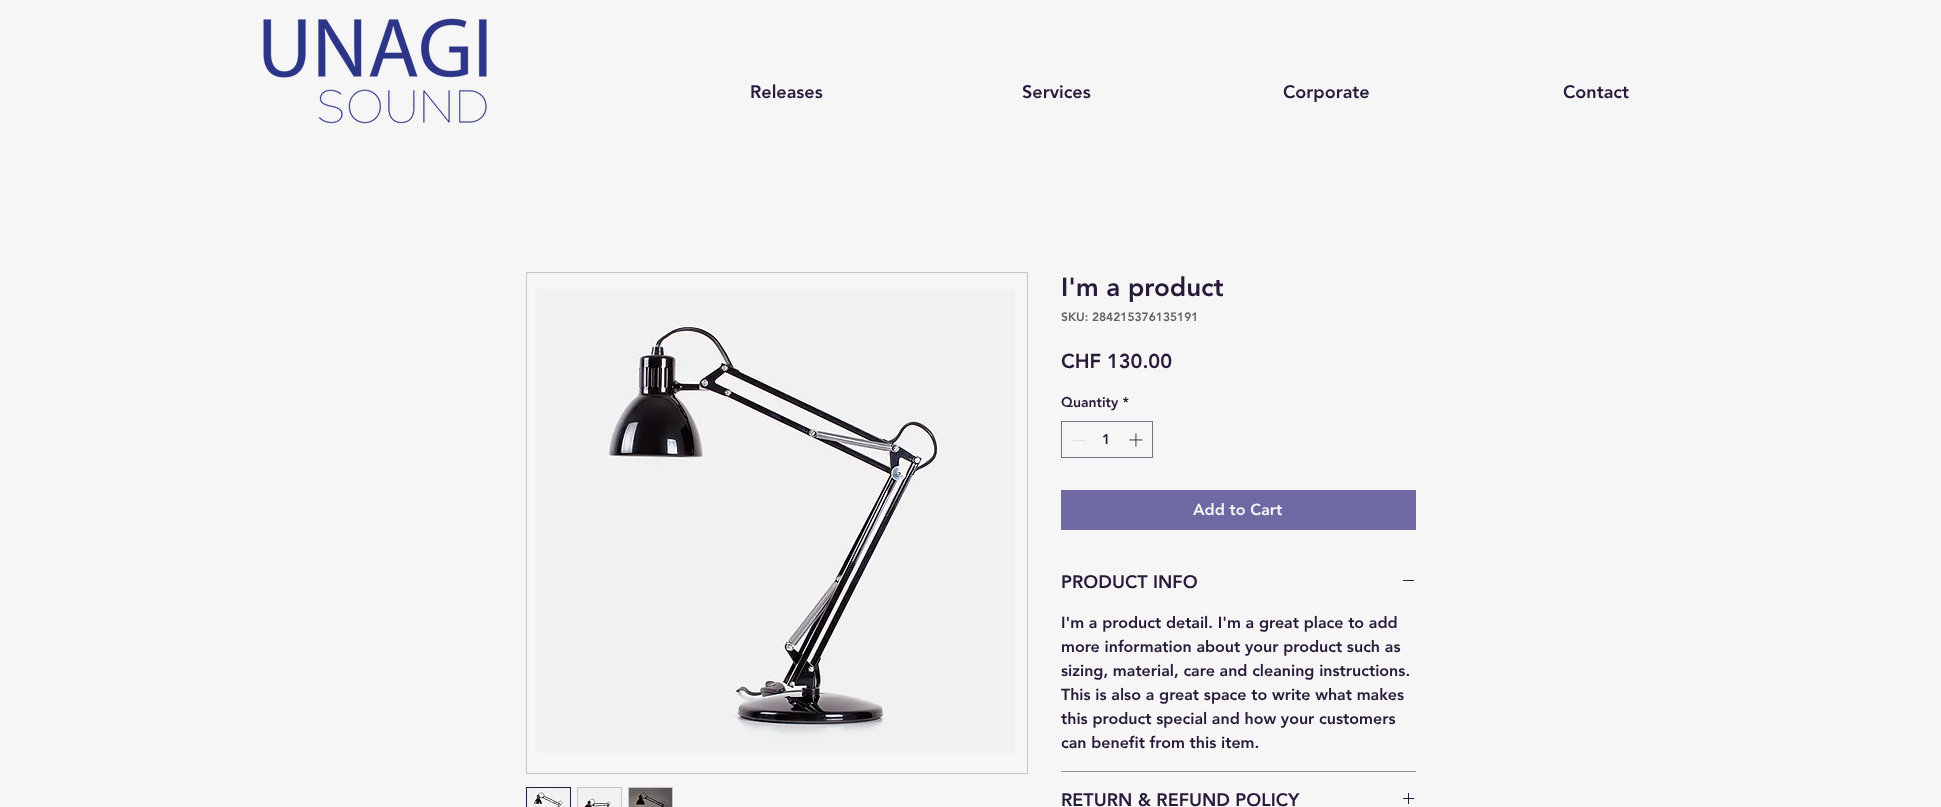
(async () => {
const canvas = document.querySelector("canvas")
canvas.width = 1941
canvas.height = 807
const c = canvas.getContext("2d")
c.miterLimit = 4
c.fontKerning = "normal"
function T(s,x,y){c.fillText(s,x,y)}
function R(x,y,w,h){c.fillRect(x,y,w,h)}
async function I(src,x,y,w,h){const img=new Image();img.src=src;await img.decode();c.drawImage(img,x,y,w,h)}
c.fillStyle="#f6f6f6"
R(0,0,1941,807)
await I("1.png",263,18,224,106)
c.font="900 18px 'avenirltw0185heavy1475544'"
c.fillStyle="#281a39"
T("Releases",750,98)
T("Services",1022,98)
T("Corporate",1283,98)
T("Contact",1563,98)
c.strokeStyle="#c5c5c5"
c.strokeRect(526.5,272.5,501,501)
await I("2.png",535,289,480,464)
c.strokeStyle="#281a39"
c.strokeRect(526.5,787.5,44,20)
await I("3.png",527,788,43,19)
c.fillStyle="#c5c5c5"
R(577,787,45,20)
await I("4.png",578,788,43,19)
R(628,787,45,20)
await I("5.png",629,788,43,19)
c.font="900 26px 'avenirltw0185heavy1475544'"
c.fillStyle="#281a39"
T("I'm a product",1061,296)
c.font="900 12px 'avenirltw0185heavy1475544'"
c.fillStyle="#626262"
T("SKU: 284215376135191",1061,321)
c.font="900 20px 'avenirltw0185heavy1475544'"
c.fillStyle="#281a39"
T("CHF 130.00",1061,368)
c.font="900 14px 'avenirltw0185heavy1475544'"
T("Quantity *",1061,407)
c.strokeStyle="#7a7285"
c.strokeRect(1061.5,421.5,91,36)
c.fillStyle="#dfdfdf"
R(1073,440,13,1)
c.fillStyle="#281a39"
T("1",1102,444)
await I("6.png",1129,433,14,14)
c.fillStyle="#6f69a3"
R(1061,490,355,40)
c.font="900 16px 'avenirltw0185heavy1475544'"
c.fillStyle="#f6f6f6"
T("Add to Cart",1193,515)
c.fillStyle="#949494"
R(1061,771,355,1)
c.font="900 18px 'avenirltw0185heavy1475544'"
c.fillStyle="#281a39"
T("PRODUCT INFO",1061,588)
R(1403,580,11,1)
c.font="900 16px 'avenirltw0185heavy1475544'"
T("I'm a product detail. I'm a great place to add",1061,628)
T("more information about your product such as",1061,652)
T("sizing, material, care and cleaning instructions.",1061,676)
T("This is also a great space to write what makes",1061,700)
T("this product special and how your customers",1061,724)
T("can benefit from this item.",1061,748)
c.font="900 18px 'avenirltw0185heavy1475544'"
T("RETURN & REFUND POLICY",1061,806)
await I("7.png",1403,793,11,11)
})()
